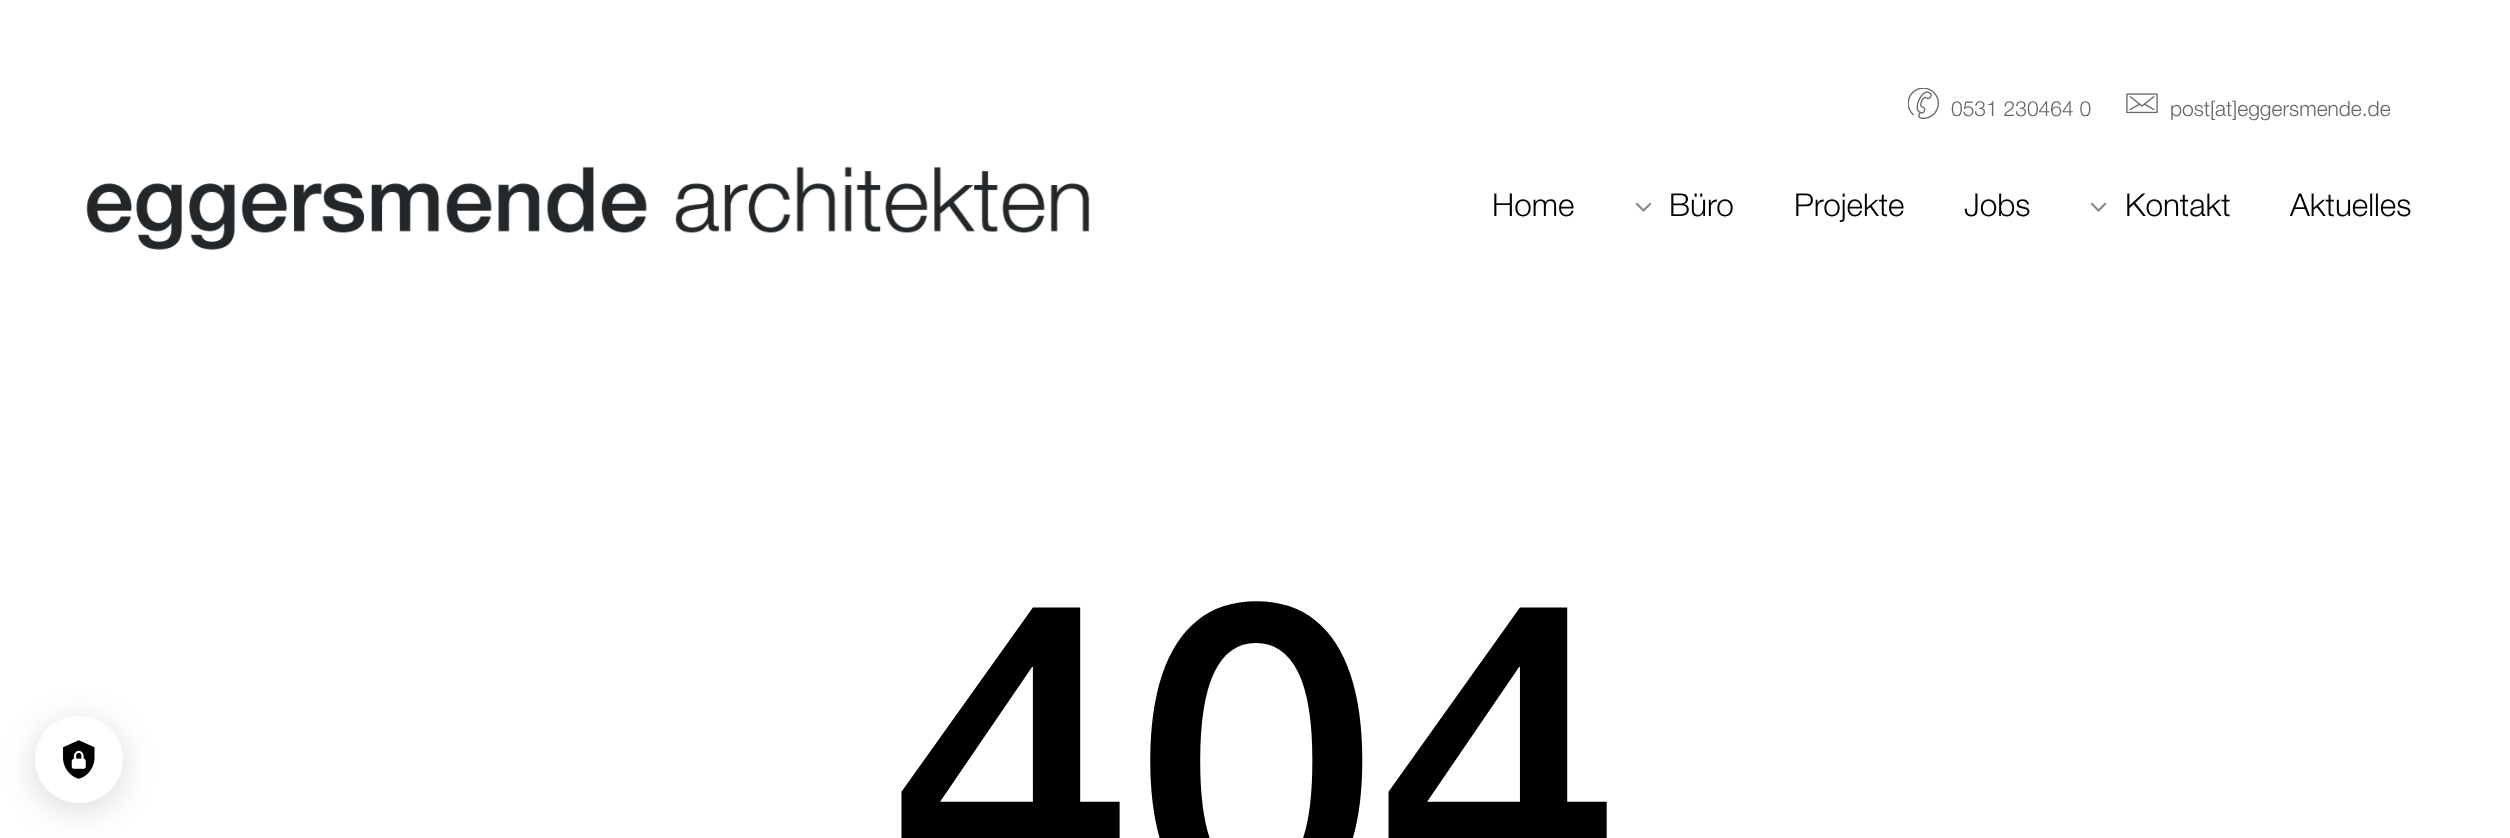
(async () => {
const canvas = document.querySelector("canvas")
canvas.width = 2510
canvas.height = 838
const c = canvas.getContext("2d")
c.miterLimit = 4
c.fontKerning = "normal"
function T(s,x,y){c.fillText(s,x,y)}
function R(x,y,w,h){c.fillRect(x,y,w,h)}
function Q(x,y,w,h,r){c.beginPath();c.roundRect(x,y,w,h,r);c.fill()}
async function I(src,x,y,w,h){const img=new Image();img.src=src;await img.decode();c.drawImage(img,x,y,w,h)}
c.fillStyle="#fff"
R(0,0,2510,838)
c.fillStyle="#00000026"
c.filter="blur(17.5px)"
c.beginPath()
c.roundRect(35,723,88,87,43.5)
c.fill()
c.filter="none"
c.fillStyle="#fff"
Q(35,716,88,87,43.5)
await I("1.png",63,740,32,39)
await I("2.png",1908,88,31,31)
c.font="300 21px 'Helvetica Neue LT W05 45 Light'"
c.fillStyle="#666"
T("0531 230464 0",1951,116)
await I("3.png",2126,93,32,21)
T("post[at]eggersmende.de",2170,116)
await I("4.png",86,166,1004,84)
c.font="300 31.5px 'Helvetica Neue LT W05 45 Light'"
c.fillStyle="#000"
T("Home",1492,216)
await I("5.png",1635,202,17,10)
T("Büro",1669,216)
T("Projekte",1794,216)
T("Jobs",1964,216)
await I("5.png",2090,202,17,10)
T("Kontakt",2125,216)
T("Aktuelles",2290,216)
c.font="500 438px 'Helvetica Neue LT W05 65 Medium'"
T("404",891,914)
})()
